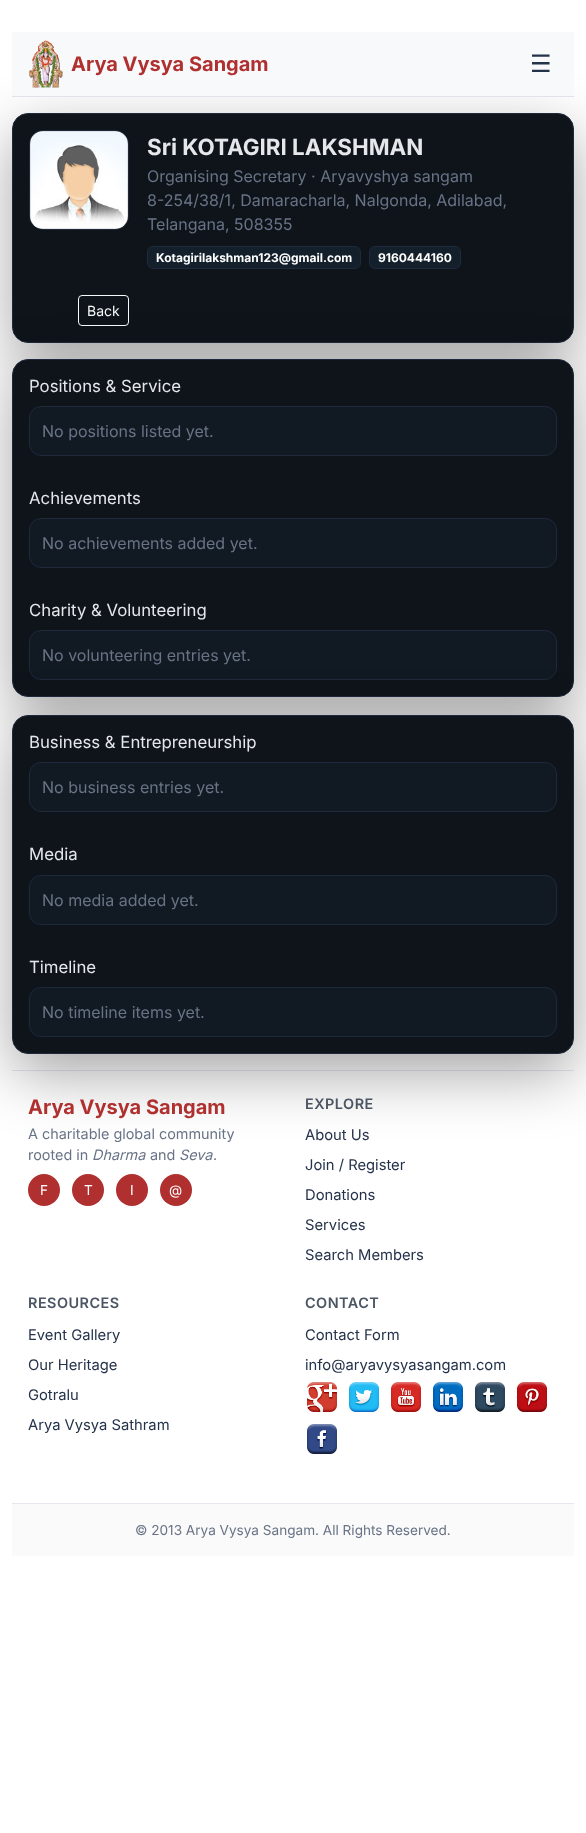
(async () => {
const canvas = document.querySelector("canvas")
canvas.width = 586
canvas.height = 1833
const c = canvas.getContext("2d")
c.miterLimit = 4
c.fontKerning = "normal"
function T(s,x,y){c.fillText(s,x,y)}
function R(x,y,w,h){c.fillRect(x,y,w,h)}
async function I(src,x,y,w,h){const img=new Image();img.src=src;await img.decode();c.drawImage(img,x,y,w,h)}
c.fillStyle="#fff"
R(0,0,586,1833)
c.fillStyle="#00000059"
c.filter="blur(30px)"
c.beginPath()
c.roundRect(12,133,562,230,16)
c.fill()
c.filter="none"
c.fillStyle="#f8f9fb"
R(12,32,562,64)
c.fillStyle="#e0e3ea"
R(12,96,562,1)
await I("1.png",28,40,35,48)
c.font="bold 20px Inter"
c.fillStyle="#b03030"
T("Arya Vysya Sangam",71,71)
c.font="24px DejaVu Sans"
c.fillStyle="#24324a"
T("☰",530,72)
c.fillStyle="#0f141b"
c.beginPath()
c.roundRect(12.5,113.5,561,229,15.5)
c.fill()
c.strokeStyle="#1e293b"
c.stroke()
c.beginPath()
c.roundRect(29.5,130.5,99,99,13.5)
c.stroke()
await I("2.png",30,131,98,98)
c.font="bold 22.4px Inter"
c.fillStyle="#e5e7eb"
T("Sri KOTAGIRI LAKSHMAN",147,155)
c.font="16px Inter"
c.fillStyle="#687386"
T("Organising Secretary · Aryavyshya sangam",147,182)
T("8-254/38/1, Damaracharla, Nalgonda, Adilabad,",147,206)
T("Telangana, 508355",147,230)
c.fillStyle="#13202b"
c.beginPath()
c.roundRect(147.5,246.5,213,22,5.5)
c.fill()
c.stroke()
c.font="bold 12px Inter"
c.fillStyle="#fff"
T("Kotagirilakshman123@gmail.com",156,262)
c.fillStyle="#13202b"
c.beginPath()
c.roundRect(369.5,246.5,91,22,5.5)
c.fill()
c.stroke()
c.fillStyle="#fff"
T("9160444160",378,262)
c.beginPath()
c.roundRect(78.5,295.5,50,30,3.5)
c.strokeStyle="#f8f9fa"
c.stroke()
c.font="14px Inter"
c.fillStyle="#f8f9fa"
T("Back",87,316)
c.fillStyle="#00000059"
c.filter="blur(30px)"
c.beginPath()
c.roundRect(12,379,562,338,16)
c.fill()
c.filter="none"
c.fillStyle="#0f141b"
c.beginPath()
c.roundRect(12.5,359.5,561,337,15.5)
c.fill()
c.strokeStyle="#1e293b"
c.stroke()
c.font="16.75px Inter"
c.fillStyle="#e5e7eb"
T("Positions & Service",29,392)
c.fillStyle="#111a22"
c.beginPath()
c.roundRect(29.5,406.5,527,49,11.5)
c.fill()
c.stroke()
c.font="16px Inter"
c.fillStyle="#687386"
T("No positions listed yet.",42,437)
c.font="16.75px Inter"
c.fillStyle="#e5e7eb"
T("Achievements",29,504)
c.fillStyle="#111a22"
c.beginPath()
c.roundRect(29.5,518.5,527,49,11.5)
c.fill()
c.stroke()
c.font="16px Inter"
c.fillStyle="#687386"
T("No achievements added yet.",42,549)
c.font="16.75px Inter"
c.fillStyle="#e5e7eb"
T("Charity & Volunteering",29,616)
c.fillStyle="#111a22"
c.beginPath()
c.roundRect(29.5,630.5,527,49,11.5)
c.fill()
c.stroke()
c.font="16px Inter"
c.fillStyle="#687386"
T("No volunteering entries yet.",42,661)
c.fillStyle="#e6e8ef"
R(12,1070,562,1)
c.fillStyle="#00000059"
c.filter="blur(30px)"
c.beginPath()
c.roundRect(12,735,562,339,16)
c.fill()
c.filter="none"
c.fillStyle="#0f141b"
c.beginPath()
c.roundRect(12.5,715.5,561,338,15.5)
c.fill()
c.stroke()
c.font="16.75px Inter"
c.fillStyle="#e5e7eb"
T("Business & Entrepreneurship",29,748)
c.fillStyle="#111a22"
c.beginPath()
c.roundRect(29.5,762.5,527,49,11.5)
c.fill()
c.stroke()
c.font="16px Inter"
c.fillStyle="#687386"
T("No business entries yet.",42,793)
c.font="16.75px Inter"
c.fillStyle="#e5e7eb"
T("Media",29,860)
c.fillStyle="#111a22"
c.beginPath()
c.roundRect(29.5,875.5,527,49,11.5)
c.fill()
c.stroke()
c.font="16px Inter"
c.fillStyle="#687386"
T("No media added yet.",42,906)
c.font="16.75px Inter"
c.fillStyle="#e5e7eb"
T("Timeline",29,973)
c.fillStyle="#111a22"
c.beginPath()
c.roundRect(29.5,987.5,527,49,11.5)
c.fill()
c.stroke()
c.font="16px Inter"
c.fillStyle="#687386"
T("No timeline items yet.",42,1018)
c.font="bold 20px Inter"
c.fillStyle="#b03030"
T("Arya Vysya Sangam",28,1114)
c.font="14.4px Inter"
c.fillStyle="#687386"
T("A charitable global community",28,1139)
T("rooted in",28,1160)
c.font="italic 14.4px Inter"
T("Dharma",92,1160)
c.font="14.4px Inter"
T("and",150,1160)
c.font="italic 14.4px Inter"
T("Seva",179,1160)
c.font="14.4px Inter"
T(".",213,1160)
c.fillStyle="#b03030"
c.beginPath()
c.arc(44,1190,16,0,7)
c.fill()
c.font="13.6px Inter"
c.fillStyle="#fff"
T("F",40,1195)
c.fillStyle="#b03030"
c.beginPath()
c.arc(88,1190,16,0,7)
c.fill()
c.fillStyle="#fff"
T("T",84,1195)
c.fillStyle="#b03030"
c.beginPath()
c.arc(132,1190,16,0,7)
c.fill()
c.fillStyle="#fff"
T("I",130,1195)
c.fillStyle="#b03030"
c.beginPath()
c.arc(176,1190,16,0,7)
c.fill()
c.fillStyle="#fff"
T("@",169,1195)
c.letterSpacing="0.5px"
c.font="600 14.4px Inter"
c.fillStyle="#4b5563"
T("EXPLORE",305,1109)
c.letterSpacing="0px"
c.font="14.75px Inter"
c.fillStyle="#24324a"
T("About Us",305,1140)
T("Join / Register",305,1170)
T("Donations",305,1200)
T("Services",305,1230)
T("Search Members",305,1260)
c.letterSpacing="0.5px"
c.font="600 14.4px Inter"
c.fillStyle="#4b5563"
T("RESOURCES",28,1308)
c.letterSpacing="0px"
c.font="14.75px Inter"
c.fillStyle="#24324a"
T("Event Gallery",28,1340)
T("Our Heritage",28,1370)
T("Gotralu",28,1400)
T("Arya Vysya Sathram",28,1430)
c.letterSpacing="0.5px"
c.font="600 14.4px Inter"
c.fillStyle="#4b5563"
T("CONTACT",305,1308)
c.letterSpacing="0px"
c.font="14.75px Inter"
c.fillStyle="#24324a"
T("Contact Form",305,1340)
T("info@aryavysyasangam.com",305,1370)
await I("3.png",307,1382,30,30)
await I("4.png",349,1382,30,30)
await I("5.png",391,1382,30,30)
await I("6.png",433,1382,30,30)
await I("7.png",475,1382,30,30)
await I("8.png",517,1382,30,30)
await I("9.png",307,1424,30,30)
c.fillStyle="#fafafa"
R(12,1504,562,52)
c.fillStyle="#e6e8ef"
R(12,1503,562,1)
c.font="13.6px Inter"
c.fillStyle="#687386"
T("© 2013 Arya Vysya Sangam. All Rights Reserved.",135,1535)
})()
